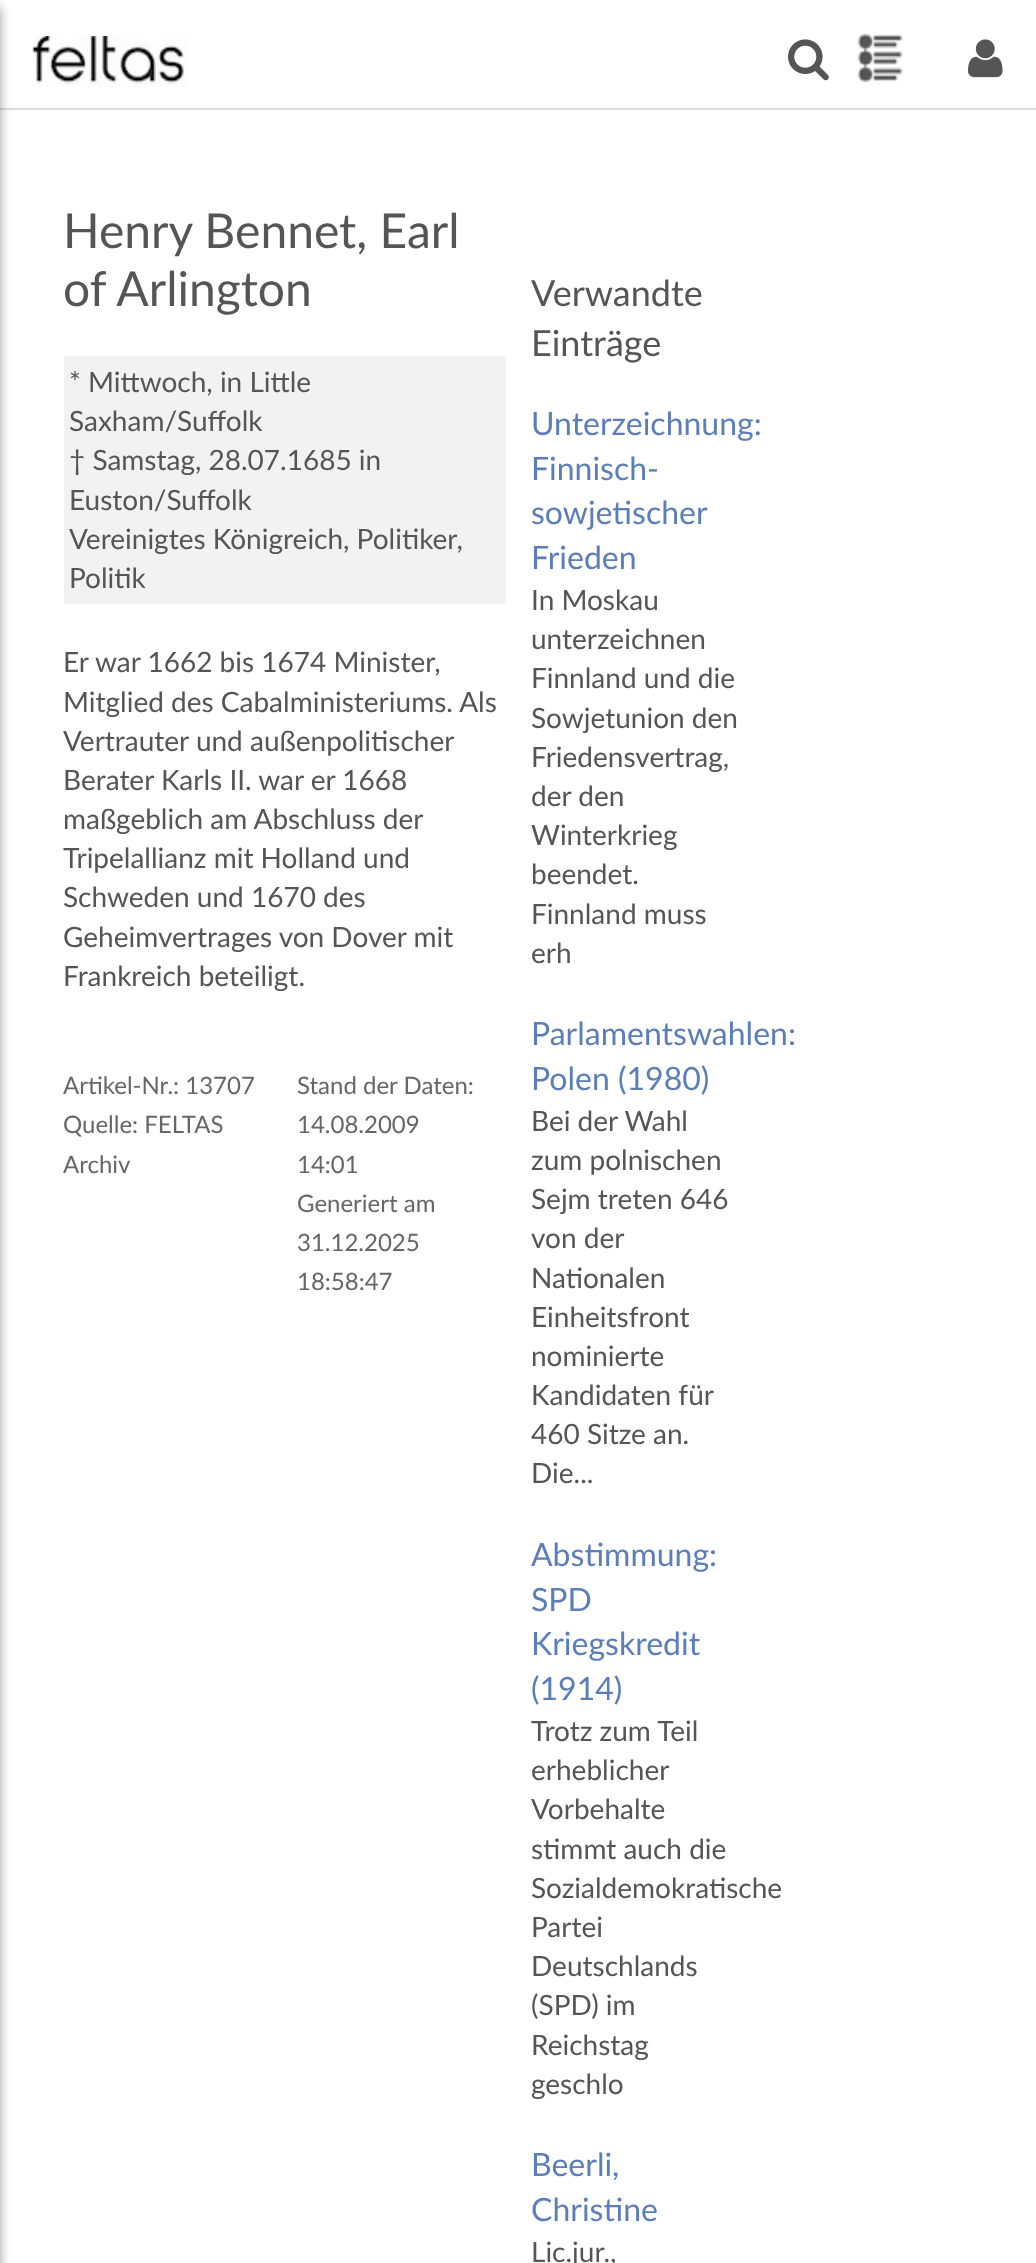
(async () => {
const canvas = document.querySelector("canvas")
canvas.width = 1036
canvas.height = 2263
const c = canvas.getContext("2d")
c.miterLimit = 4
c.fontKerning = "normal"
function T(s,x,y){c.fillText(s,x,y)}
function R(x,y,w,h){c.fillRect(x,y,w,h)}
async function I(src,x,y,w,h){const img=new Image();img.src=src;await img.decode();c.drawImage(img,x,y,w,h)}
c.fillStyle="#fff"
R(0,0,1036,2263)
c.fillStyle="#ddd"
R(0,108,1036,2)
c.fillStyle="#00000066"
c.filter="blur(6px)"
c.beginPath()
c.rect(-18,8,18,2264)
c.fill()
c.filter="none"
await I("1.png",32,36,156,51)
await I("2.png",788,39,41,42)
await I("3.png",857,34,46,48)
await I("4.png",968,39,35,39)
c.font="48px Lato"
c.fillStyle="#555"
T("Henry Bennet, Earl",63,248)
T("of Arlington",63,306)
c.fillStyle="#f2f2f2"
R(64,356,442,248)
c.font="28px Lato"
c.fillStyle="#555"
T("* Mittwoch, in Little",69,392)
T("Saxham/Suffolk",69,431)
T("† Samstag, 28.07.1685 in",69,470)
T("Euston/Suffolk",69,510)
T("Vereinigtes Königreich, Politiker,",69,549)
T("Politik",69,588)
T("Er war 1662 bis 1674 Minister,",63,672)
T("Mitglied des Cabalministeriums. Als",63,712)
T("Vertrauter und außenpolitischer",63,751)
T("Berater Karls II. war er 1668",63,790)
T("maßgeblich am Abschluss der",63,829)
T("Tripelallianz mit Holland und",63,868)
T("Schweden und 1670 des",63,907)
T("Geheimvertrages von Dover mit",63,947)
T("Frankreich beteiligt.",63,986)
c.font="24px Lato"
c.fillStyle="#666"
T("Artikel-Nr.: 13707",63,1094)
T("Quelle: FELTAS",63,1133)
T("Archiv",63,1173)
T("Stand der Daten:",297,1094)
T("14.08.2009",297,1133)
T("14:01",297,1173)
T("Generiert am",297,1212)
T("31.12.2025",297,1251)
T("18:58:47",297,1290)
c.font="36px Lato"
c.fillStyle="#555"
T("Verwandte",531,306)
T("Einträge",531,356)
c.font="32px Lato"
c.fillStyle="#5b7eb9"
T("Unterzeichnung:",531,435)
T("Finnisch-",531,480)
T("sowjetischer",531,524)
T("Frieden",531,569)
c.font="28px Lato"
c.fillStyle="#555"
T("In Moskau",531,610)
T("unterzeichnen",531,649)
T("Finnland und die",531,688)
T("Sowjetunion den",531,728)
T("Friedensvertrag,",531,767)
T("der den",531,806)
T("Winterkrieg",531,845)
T("beendet.",531,884)
T("Finnland muss",531,924)
T("erh",531,963)
c.font="32px Lato"
c.fillStyle="#5b7eb9"
T("Parlamentswahlen:",531,1045)
T("Polen (1980)",531,1090)
c.font="28px Lato"
c.fillStyle="#555"
T("Bei der Wahl",531,1131)
T("zum polnischen",531,1170)
T("Sejm treten 646",531,1209)
T("von der",531,1248)
T("Nationalen",531,1288)
T("Einheitsfront",531,1327)
T("nominierte",531,1366)
T("Kandidaten für",531,1405)
T("460 Sitze an.",531,1444)
T("Die...",531,1483)
c.font="32px Lato"
c.fillStyle="#5b7eb9"
T("Abstimmung:",531,1566)
T("SPD",531,1611)
T("Kriegskredit",531,1655)
T("(1914)",531,1700)
c.font="28px Lato"
c.fillStyle="#555"
T("Trotz zum Teil",531,1741)
T("erheblicher",531,1780)
T("Vorbehalte",531,1819)
T("stimmt auch die",531,1859)
T("Sozialdemokratische",531,1898)
T("Partei",531,1937)
T("Deutschlands",531,1976)
T("(SPD) im",531,2015)
T("Reichstag",531,2055)
T("geschlo",531,2094)
c.font="32px Lato"
c.fillStyle="#5b7eb9"
T("Beerli,",531,2176)
T("Christine",531,2221)
c.font="28px Lato"
c.fillStyle="#555"
T("Lic.jur.,",531,2262)
})()
